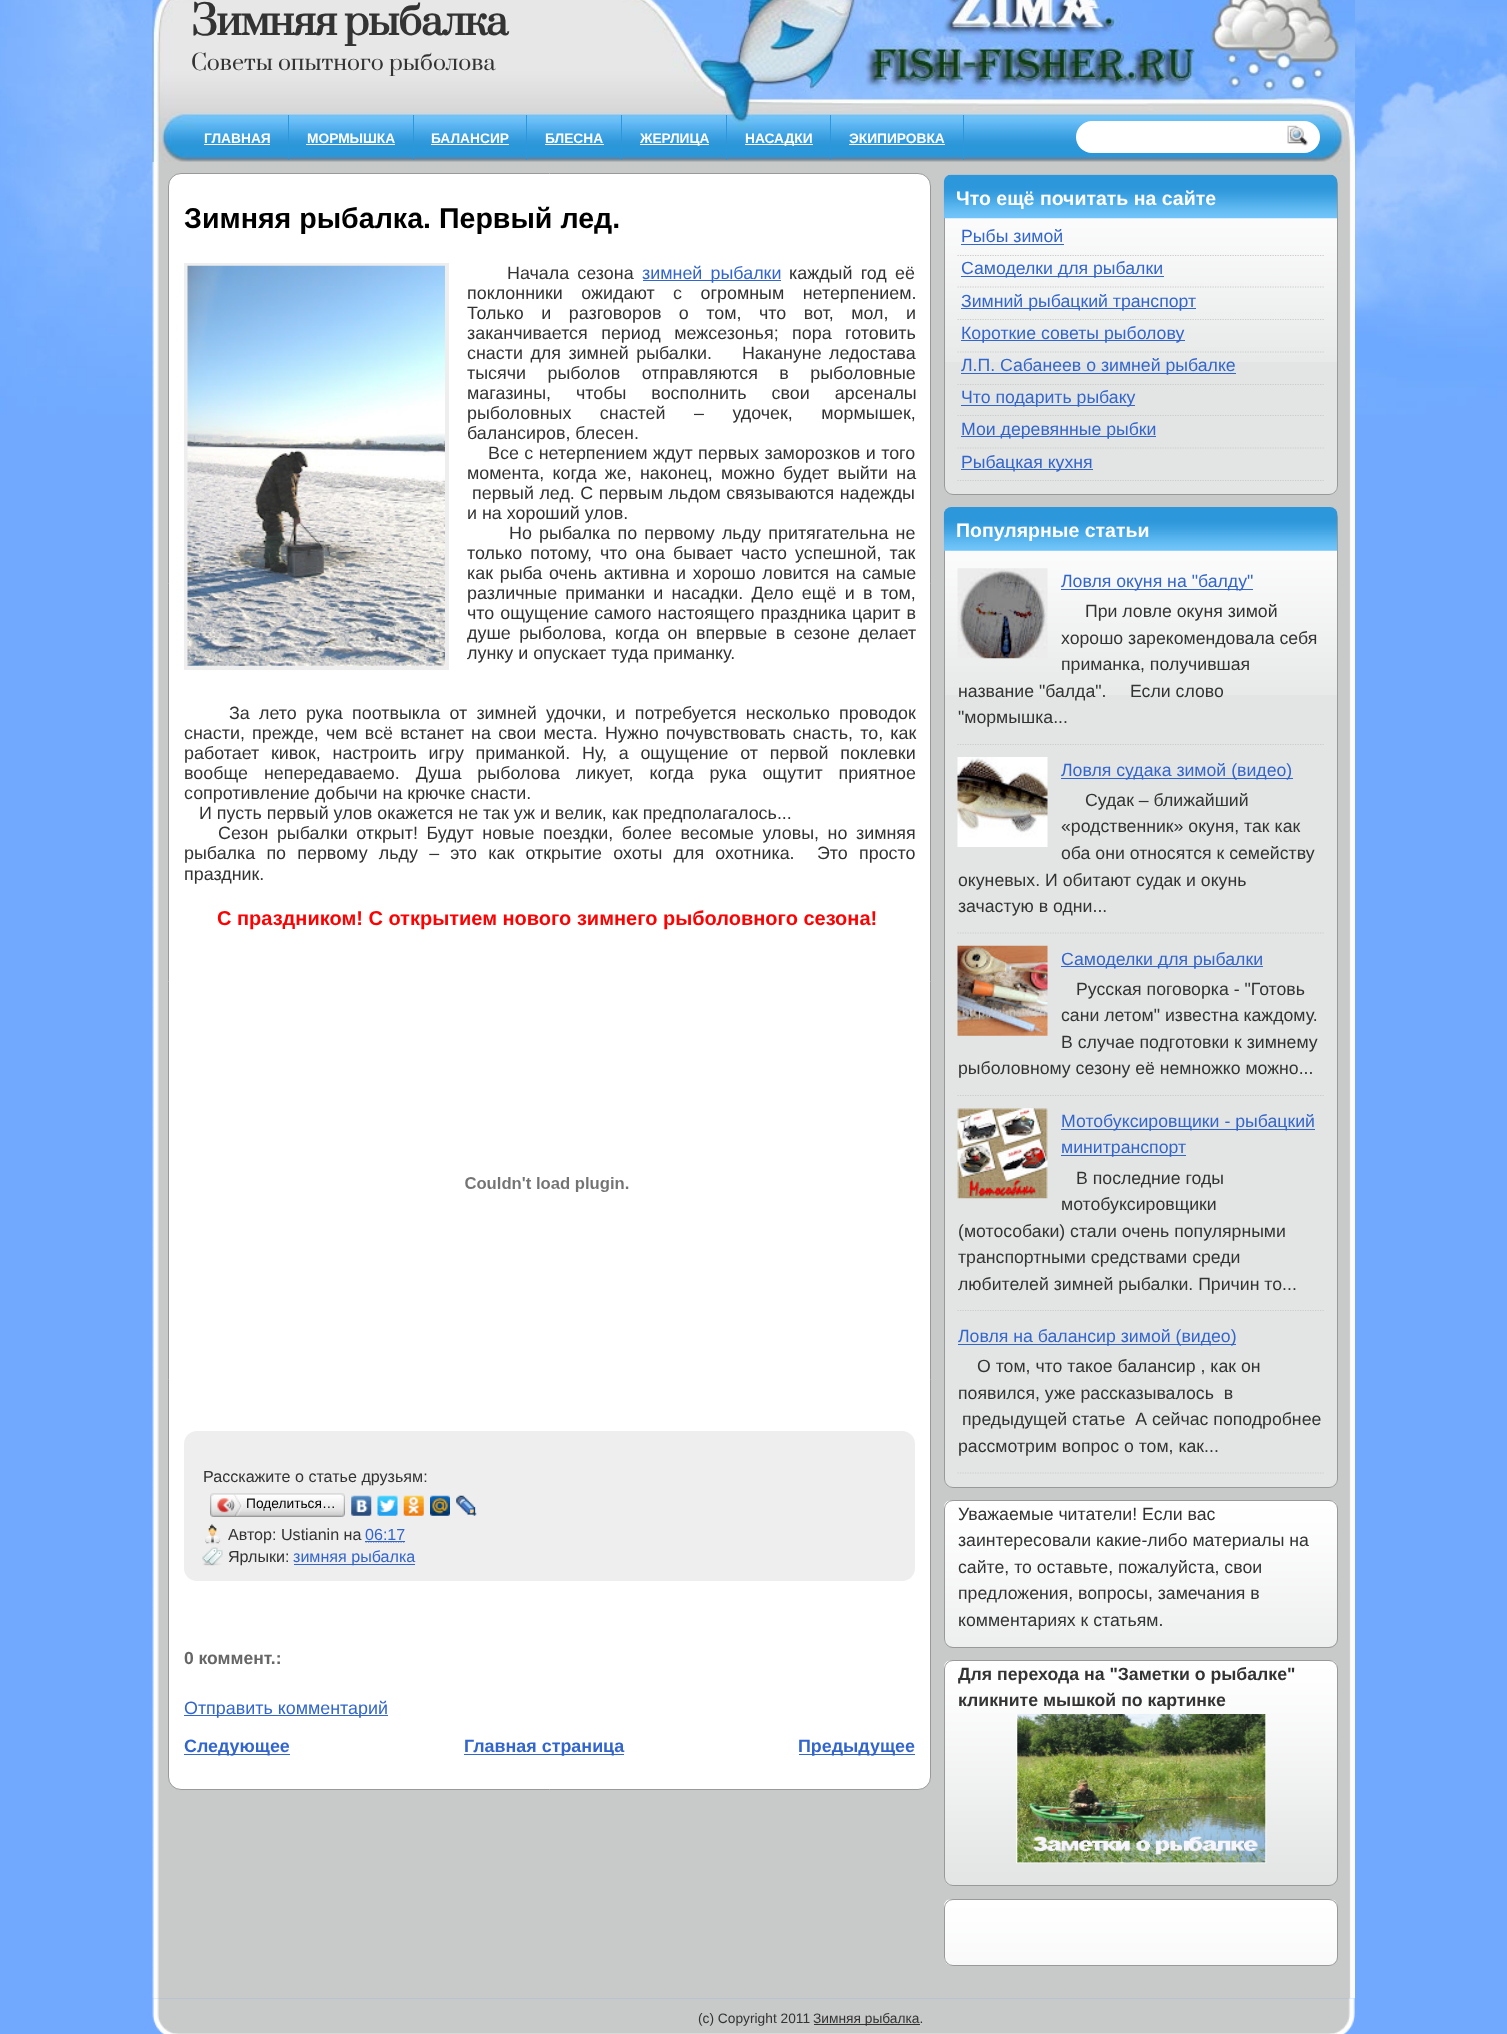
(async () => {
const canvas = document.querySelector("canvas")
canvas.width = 1507
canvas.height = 2034
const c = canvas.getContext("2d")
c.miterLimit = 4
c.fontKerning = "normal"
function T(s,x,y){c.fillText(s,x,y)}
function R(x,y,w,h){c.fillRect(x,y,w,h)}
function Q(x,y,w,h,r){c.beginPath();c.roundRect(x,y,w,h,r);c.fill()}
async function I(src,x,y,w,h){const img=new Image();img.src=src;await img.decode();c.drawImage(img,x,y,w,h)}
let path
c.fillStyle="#70a9ff"
R(0,0,1507,2034)
await I("1.png",0,0,1507,415)
await I("2.png",152,0,1203,162)
c.letterSpacing="-1.25px"
c.font="bold 39.25px Prata"
c.fillStyle="#333"
T("Зимняя рыбалка",191,35)
c.letterSpacing="0px"
c.font="21.5px Prata"
T("Советы опытного рыболова",191,70)
c.font="bold 13.75px Liberation Sans"
c.fillStyle="#fff"
T("ГЛАВНАЯ",204,143)
c.fillStyle="#2c97da"
R(288,115,1,45)
c.fillStyle="#fff"
R(204,144,66,1)
T("МОРМЫШКА",307,143)
c.fillStyle="#2c97da"
R(413,115,1,45)
c.fillStyle="#fff"
R(306,144,89,1)
T("БАЛАНСИР",431,143)
c.fillStyle="#2c97da"
R(526,115,1,45)
c.fillStyle="#fff"
R(431,144,78,1)
T("БЛЕСНА",545,143)
c.fillStyle="#2c97da"
R(621,115,1,45)
c.fillStyle="#fff"
R(545,144,59,1)
R(640,144,69,1)
T("ЖЕРЛИЦА",640,143)
c.fillStyle="#2c97da"
R(726,115,1,45)
c.fillStyle="#fff"
R(745,144,68,1)
T("НАСАДКИ",745,143)
c.fillStyle="#2c97da"
R(830,115,1,45)
c.fillStyle="#fff"
T("ЭКИПИРОВКА",849,143)
c.fillStyle="#2c97da"
R(963,115,1,45)
c.fillStyle="#fff"
R(849,144,96,1)
Q(1076,121,244,32,16)
await I("3.png",1287,125,21,21)
await I("4.png",152,162,1203,1837)
c.beginPath()
c.roundRect(168.5,173.5,762,1616,12.5)
c.fill()
c.strokeStyle="#999"
c.stroke()
c.font="bold 28.6px Liberation Sans"
c.fillStyle="#000"
T("Зимняя рыбалка. Первый лед.",184,228)
c.strokeStyle="#eee"
c.lineWidth=4
c.strokeRect(186,265,261,403)
await I("5.png",187,265,258,401)
c.wordSpacing="3.25px"
c.font="17.9px Liberation Sans"
c.fillStyle="#333"
T("Начала сезона",507,279)
c.fillStyle="#36c"
R(643,280,138,1)
T("зимней рыбалки",642,279)
c.fillStyle="#333"
T("каждый год её",789,279)
c.wordSpacing="13.5px"
T("поклонники ожидают с огромным нетерпением.",467,299)
c.wordSpacing="12.5px"
T("Только и разговоров о том, что вот, мол, и",467,319)
c.wordSpacing="8.5px"
T("заканчивается период межсезонья; пора готовить",467,339)
c.wordSpacing="2.5px"
T("снасти для зимней рыбалки.    Накануне ледостава",467,359)
c.wordSpacing="16.5px"
T("тысячи рыболов отправляются в рыболовные",467,379)
c.wordSpacing="20px"
T("магазины, чтобы восполнить свои арсеналы",467,399)
c.wordSpacing="23.5px"
T("рыболовных снастей – удочек, мормышек,",467,419)
c.wordSpacing="0px"
T("балансиров, блесен.",467,439)
c.wordSpacing="0.5px"
T("Все с нетерпением ждут первых заморозков и того",488,459)
c.wordSpacing="3.25px"
T("момента, когда же, наконец, можно будет выйти на",467,479)
c.wordSpacing="0.5px"
T("первый лед. С первым льдом связываются надежды",472,499)
c.wordSpacing="0px"
T("и на хороший улов.",467,519)
c.wordSpacing="2.25px"
T("Но рыбалка по первому льду притягательна не",509,539)
c.wordSpacing="3px"
T("только потому, что она бывает часто успешной, так",467,559)
c.wordSpacing="1.75px"
T("как рыба очень активна и хорошо ловится на самые",467,579)
c.wordSpacing="3.25px"
T("различные приманки и насадки. Дело ещё и в том,",467,599)
c.wordSpacing="1px"
T("что ощущение самого настоящего праздника царит в",467,619)
c.wordSpacing="3.5px"
T("душе рыболова, когда он впервые в сезоне делает",467,639)
c.wordSpacing="0px"
T("лунку и опускает туда приманку.",467,659)
c.wordSpacing="4.25px"
T("За лето рука поотвыкла от зимней удочки, и потребуется несколько проводок",229,719)
c.wordSpacing="2.25px"
T("снасти, прежде, чем всё встанет на свои места. Нужно почувствовать снасть, то, как",184,739)
c.wordSpacing="6.75px"
T("работает кивок, настроить игру приманкой. Ну, а ощущение от первой поклевки",184,759)
c.wordSpacing="11px"
T("вообще непередаваемо. Душа рыболова ликует, когда рука ощутит приятное",184,779)
c.wordSpacing="0px"
T("сопротивление добычи на крючке снасти.",184,799)
T("И пусть первый улов окажется не так уж и велик, как предполагалось...",199,819)
c.wordSpacing="3.6px"
T("Сезон рыбалки открыт! Будут новые поездки, более весомые уловы, но зимняя",218,839)
c.wordSpacing="6.25px"
T("рыбалка по первому льду – это как открытие охоты для охотника.  Это просто",184,859)
c.wordSpacing="0px"
T("праздник.",184,880)
c.font="bold 20px Liberation Sans"
c.fillStyle="#f00"
T("С праздником! С открытием нового зимнего рыболовного сезона!",217,925)
await I("6.png",465,1177,164,15)
c.fillStyle="#eee"
Q(184,1431,731,150,13)
c.font="16.1px Liberation Sans"
c.fillStyle="#333"
T("Расскажите о статье друзьям:",203,1482)
await I("7.png",213,1493,129,24)
await I("8.png",210,1493,4,24)
await I("9.png",217,1494,26,22)
c.font="13.75px Liberation Sans"
c.fillStyle="#000"
T("Поделиться…",246,1508)
await I("10.png",341,1493,4,24)
await I("11.png",351,1495,21,21)
await I("12.png",377,1495,21,21)
await I("13.png",403,1495,21,21)
await I("14.png",430,1495,20,21)
await I("15.png",456,1495,21,21)
await I("16.png",205,1524,16,20)
c.font="16.1px Liberation Sans"
c.fillStyle="#333"
T("Автор: Ustianin на",228,1540)
c.fillStyle="#36c"
T("06:17",365,1540)
path = new Path2D("M365.5 1542h40")
c.strokeStyle="#36c"
c.lineWidth=1.2
c.setLineDash([1.25,1.25])
c.stroke(path)
R(365,1541,40,1)
await I("17.png",202,1547,21,19)
c.fillStyle="#333"
T("Ярлыки:",228,1562)
c.fillStyle="#36c"
R(294,1564,121,1)
T("зимняя рыбалка",293,1562)
c.font="bold 17.5px Liberation Sans"
c.fillStyle="#666"
T("0 коммент.:",184,1664)
c.fillStyle="#36c"
R(184,1715,204,1)
c.font="17.9px Liberation Sans"
T("Отправить комментарий",184,1714)
R(184,1754,106,1)
c.font="bold 17.9px Liberation Sans"
T("Следующее",184,1752)
R(464,1754,160,1)
T("Главная страница",464,1752)
R(799,1754,116,1)
T("Предыдущее",798,1752)
c.fillStyle="#e3e5e5"
Q(944,175,394,320,9)
await I("18.png",944,175,393,187)
c.beginPath()
c.roundRect(944.5,175.5,393,319,8.5)
c.strokeStyle="#999"
c.lineWidth=1
c.setLineDash([])
c.stroke()
await I("19.png",943,174,395,45)
c.font="bold 19.5px Liberation Sans"
c.fillStyle="#fff"
T("Что ещё почитать на сайте",956,205)
path = new Path2D("M957.5 255.5h366.5")
c.strokeStyle="#ccc"
c.lineWidth=1.2
c.setLineDash([1.25,1.25])
c.stroke(path)
c.font="17.7px Liberation Sans"
c.fillStyle="#36c"
T("Рыбы зимой",961,242)
R(961,244,103,1)
path = new Path2D("M957.5 287h366.5")
c.stroke(path)
R(961,276,203,1)
T("Самоделки для рыбалки",961,274)
path = new Path2D("M957.5 319.5h366.5")
c.stroke(path)
R(961,308,235,1)
T("Зимний рыбацкий транспорт",961,307)
path = new Path2D("M957.5 352h366.5")
c.stroke(path)
R(961,340,224,1)
T("Короткие советы рыболову",961,339)
path = new Path2D("M957.5 384.5h366.5")
c.stroke(path)
R(961,373,275,1)
T("Л.П. Сабанеев о зимней рыбалке",961,371)
path = new Path2D("M957.5 415.5h366.5")
c.stroke(path)
R(961,405,174,1)
T("Что подарить рыбаку",961,403)
path = new Path2D("M957.5 448h366.5")
c.stroke(path)
R(961,436,195,1)
T("Мои деревянные рыбки",961,435)
path = new Path2D("M957.5 480.5h366.5")
c.stroke(path)
R(961,469,132,1)
T("Рыбацкая кухня",961,468)
c.fillStyle="#e3e5e5"
Q(944,508,394,980,9)
await I("20.png",944,508,393,187)
c.beginPath()
c.roundRect(944.5,508.5,393,979,8.5)
c.strokeStyle="#999"
c.lineWidth=1
c.setLineDash([])
c.stroke()
await I("21.png",943,507,395,44)
c.font="bold 19.5px Liberation Sans"
c.fillStyle="#fff"
T("Популярные статьи",956,537)
path = new Path2D("M957.5 744.5h366.5")
c.strokeStyle="#ccc"
c.lineWidth=1.2
c.setLineDash([1.25,1.25])
c.stroke(path)
await I("22.png",957,568,91,91)
c.fillStyle="#36c"
R(1061,589,192,1)
c.font="17.7px Liberation Sans"
T("Ловля окуня на \"балду\"",1061,587)
c.fillStyle="#333"
T("При ловле окуня зимой",1085,617)
T("хорошо зарекомендовала себя",1061,644)
T("приманка, получившая",1061,670)
T("название \"балда\".",958,697)
T("Если слово",1130,697)
T("\"мормышка...",958,723)
path = new Path2D("M957.5 933h366.5")
c.stroke(path)
await I("23.png",957,757,91,90)
c.fillStyle="#36c"
R(1061,778,232,1)
T("Ловля судака зимой (видео)",1061,776)
c.fillStyle="#333"
T("Судак – ближайший",1085,806)
T("«родственник» окуня, так как",1061,832)
T("оба они относятся к семейству",1061,859)
T("окуневых. И обитают судак и окунь",958,886)
T("зачастую в одни...",958,912)
path = new Path2D("M957.5 1095.5h366.5")
c.stroke(path)
await I("24.png",957,945,91,91)
c.fillStyle="#36c"
R(1061,966,202,1)
T("Самоделки для рыбалки",1061,965)
c.fillStyle="#333"
T("Русская поговорка - \"Готовь",1076,995)
T("сани летом\" известна каждому.",1061,1021)
T("В случае подготовки к зимнему",1061,1048)
T("рыболовному сезону её немножко можно...",958,1074)
path = new Path2D("M957.5 1310.5h366.5")
c.stroke(path)
await I("25.png",957,1108,91,91)
c.fillStyle="#36c"
R(1061,1129,254,1)
T("Мотобуксировщики - рыбацкий",1061,1127)
R(1061,1155,125,1)
T("минитранспорт",1061,1153)
c.fillStyle="#333"
T("В последние годы",1076,1184)
T("мотобуксировщики",1061,1210)
T("(мотособаки) стали очень популярными",958,1237)
T("транспортными средствами среди",958,1263)
T("любителей зимней рыбалки. Причин то...",958,1290)
path = new Path2D("M957.5 1473h366.5")
c.stroke(path)
c.fillStyle="#36c"
R(958,1344,278,1)
T("Ловля на балансир зимой (видео)",958,1342)
c.fillStyle="#333"
T("О том, что такое балансир , как он",977,1372)
T("появился, уже рассказывалось  в",958,1399)
T("предыдущей статье  А сейчас поподробнее",962,1425)
T("рассмотрим вопрос о том, как...",958,1452)
await I("26.png",944,1500,393,147)
c.beginPath()
c.roundRect(944.5,1500.5,393,147,8.5)
c.strokeStyle="#999"
c.lineWidth=1
c.setLineDash([])
c.stroke()
T("Уважаемые читатели! Если вас",958,1520)
T("заинтересовали какие-либо материалы на",958,1546)
T("сайте, то оставьте, пожалуйста, свои",958,1573)
T("предложения, вопросы, замечания в",958,1599)
T("комментариях к статьям.",958,1626)
await I("27.png",944,1660,393,226)
c.beginPath()
c.roundRect(944.5,1660.5,393,225,8.5)
c.stroke()
c.font="bold 17.7px Liberation Sans"
T("Для перехода на \"Заметки о рыбалке\"",958,1680)
T("кликните мышкой по картинке",958,1706)
await I("28.png",1016,1714,251,150)
await I("29.png",944,1899,393,67)
c.beginPath()
c.roundRect(944.5,1899.5,393,66,8.5)
c.stroke()
await I("30.png",152,1998,1203,36)
c.font="13.75px Liberation Sans"
T("(c) Copyright 2011",698,2023)
R(814,2024,106,1)
T("Зимняя рыбалка.",813,2023)
})()
